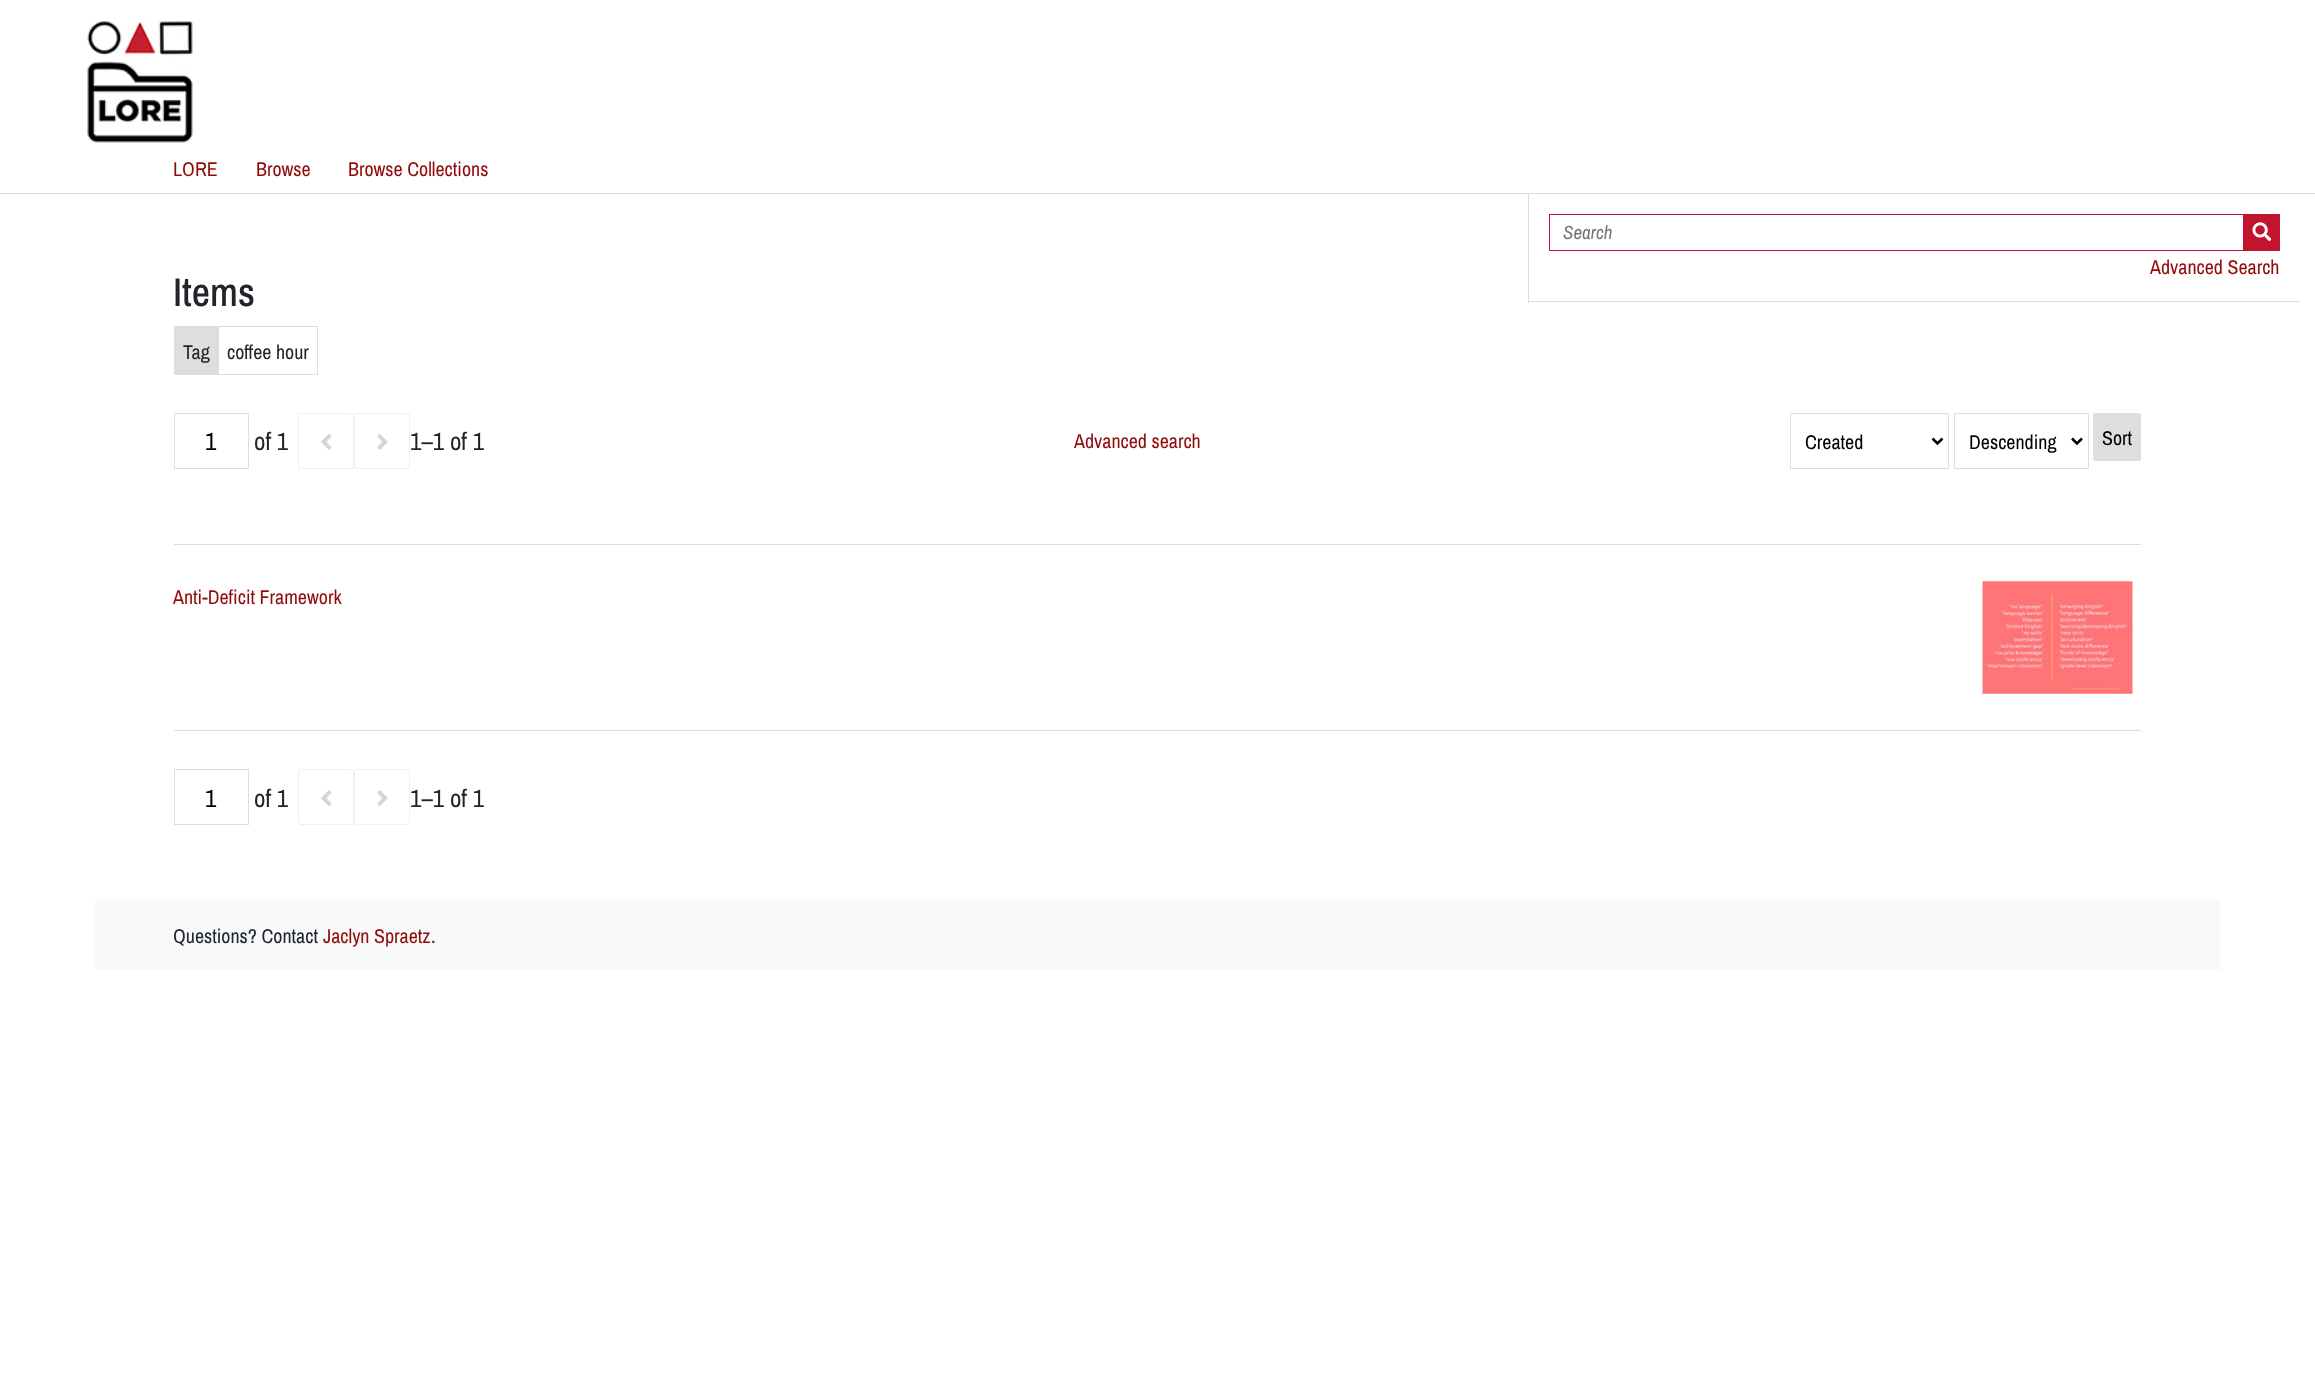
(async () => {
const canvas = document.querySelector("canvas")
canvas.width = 2315
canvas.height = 1386
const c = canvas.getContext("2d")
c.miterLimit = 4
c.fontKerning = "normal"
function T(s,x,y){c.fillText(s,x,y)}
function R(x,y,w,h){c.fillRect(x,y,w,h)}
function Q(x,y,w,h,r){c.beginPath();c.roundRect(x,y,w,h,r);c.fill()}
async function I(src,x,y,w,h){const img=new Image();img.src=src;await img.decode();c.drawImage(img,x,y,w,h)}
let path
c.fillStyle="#fff"
R(0,0,2315,1386)
c.fillStyle="#dedede"
R(0,193,2315,1)
await I("1.png",87,19,106,124)
c.font="20px Archivo Narrow"
c.fillStyle="#920b0b"
T("LORE",173,176)
T("Browse",256,176)
T("Browse Collections",348,176)
c.fillStyle="#dedede"
R(1528,301,772,1)
R(1528,193,1,110)
c.strokeStyle="#c3142d"
c.strokeRect(1549.5,214.5,694,36)
c.font="italic 19px Archivo Narrow"
c.fillStyle="#757575"
T("Search",1563,239)
c.fillStyle="#c3142d"
R(2244,214,36,37)
await I("2.png",2252,222,20,19)
c.font="20px Archivo Narrow"
c.fillStyle="#920b0b"
T("Advanced Search",2150,274)
c.font="500 40px Archivo Narrow"
c.fillStyle="#212529"
T("Items",173,306)
c.fillStyle="#dedede"
R(174,326,44,49)
c.font="20px Archivo Narrow"
c.fillStyle="#212529"
T("Tag",183,359)
c.strokeStyle="#dedede"
c.strokeRect(218.5,326.5,99,48)
T("coffee hour",227,359)
c.strokeRect(174.5,413.5,74,55)
c.font="25px Archivo Narrow"
c.fillStyle="#000"
T("1",205,450)
c.fillStyle="#212529"
T("of 1",254,450)
c.beginPath()
c.roundRect(298.5,413.5,55,55,2)
c.strokeStyle="#efefef"
c.stroke()
await I("3.png",321,434,11,16)
c.beginPath()
c.roundRect(354.5,413.5,55,55,2)
c.stroke()
await I("4.png",377,434,11,16)
T("1–1 of 1",410,450)
c.font="20px Archivo Narrow"
c.fillStyle="#920b0b"
T("Advanced search",1074,448)
c.strokeStyle="#dedede"
c.strokeRect(1790.5,413.5,158,55)
path = new Path2D("M1932.5 438.5l5 5l5-5")
c.strokeStyle="#000"
c.lineWidth=2.5
c.stroke(path)
c.fillStyle="#000"
T("Created",1805,449)
c.strokeStyle="#dedede"
c.lineWidth=1
c.strokeRect(1954.5,413.5,134,55)
path = new Path2D("M2072 438.5l5 5l5-5")
c.strokeStyle="#000"
c.lineWidth=2.5
c.stroke(path)
T("Descending",1969,449)
c.fillStyle="#dedede"
Q(2093,413,48,48,2.5)
c.fillStyle="#000"
T("Sort",2102,445)
c.fillStyle="#dedede"
R(174,544,1967,1)
R(174,730,1967,1)
c.fillStyle="#920b0b"
T("Anti-Deficit Framework",173,604)
await I("5.png",1982,581,151,113)
c.strokeStyle="#dedede"
c.lineWidth=1
c.strokeRect(174.5,769.5,74,55)
c.font="25px Archivo Narrow"
c.fillStyle="#000"
T("1",205,807)
c.fillStyle="#212529"
T("of 1",254,807)
c.beginPath()
c.roundRect(298.5,769.5,55,55,2)
c.strokeStyle="#efefef"
c.stroke()
await I("6.png",321,790,11,16)
c.beginPath()
c.roundRect(354.5,769.5,55,55,2)
c.stroke()
await I("7.png",377,790,11,16)
T("1–1 of 1",410,807)
c.fillStyle="#f8f9fa"
R(95,900,2125,70)
c.font="20px Archivo Narrow"
c.fillStyle="#212529"
T("Questions? Contact",173,943)
c.fillStyle="#920b0b"
T("Jaclyn Spraetz",323,943)
c.fillStyle="#212529"
T(".",431,943)
})()
